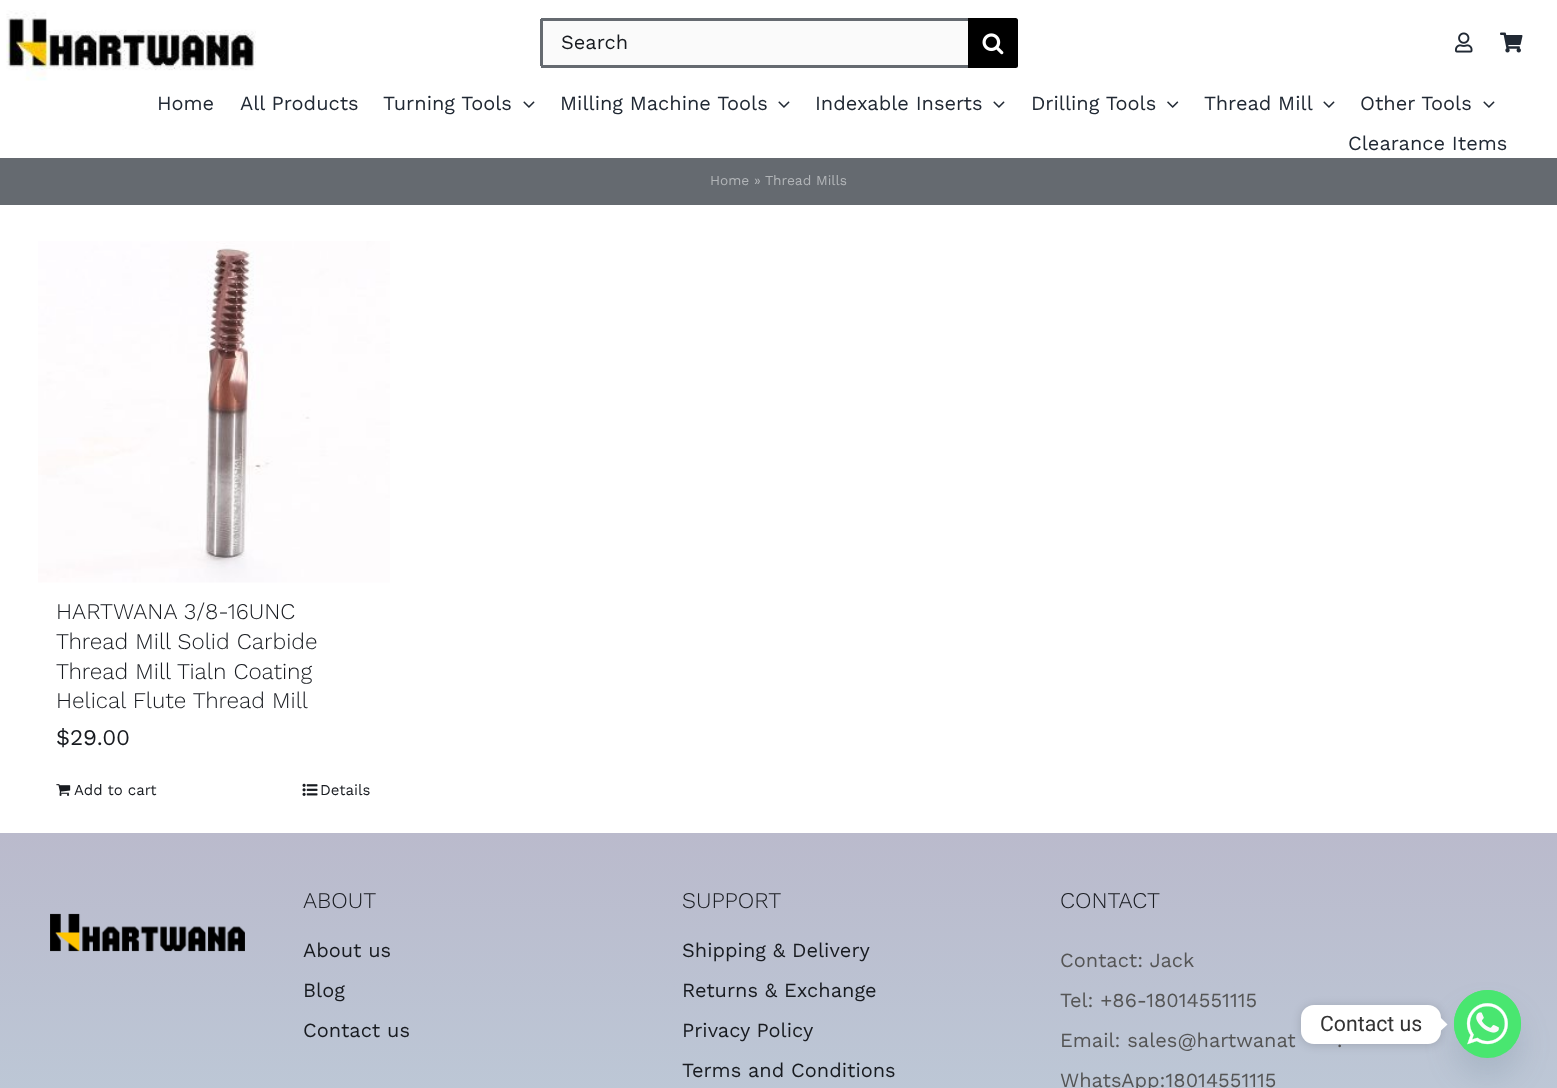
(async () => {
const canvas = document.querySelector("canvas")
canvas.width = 1557
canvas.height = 1088
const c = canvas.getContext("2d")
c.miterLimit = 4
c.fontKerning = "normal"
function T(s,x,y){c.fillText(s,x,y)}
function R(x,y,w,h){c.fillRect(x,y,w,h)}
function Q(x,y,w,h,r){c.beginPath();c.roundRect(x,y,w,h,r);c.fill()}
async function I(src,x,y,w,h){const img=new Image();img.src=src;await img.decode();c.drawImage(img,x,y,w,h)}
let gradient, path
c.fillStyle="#fff"
R(0,0,1557,1088)
await I("1.png",6,10,250,71)
c.fillStyle="#fafafa"
c.beginPath()
c.roundRect(540,18,428,50,[2.5,0,0,2.5])
c.fill()
c.fillStyle="#656a70"
R(541,18,427,3)
R(541,65,427,3)
R(540,19,3,47)
c.font="20px Work Sans"
c.fillStyle="#181b20"
T("Search",561,49)
c.fillStyle="#000"
c.beginPath()
c.roundRect(968,18,50,50,[0,2.5,2.5,0])
c.fill()
await I("2.png",982,33,22,22)
await I("3.png",1455,32,18,21)
await I("4.png",1500,32,23,21)
c.fillStyle="#212934"
T("Home",157,110)
T("All Products",240,110)
T("Turning Tools",383,110)
await I("5.png",523,101,12,7)
T("Milling Machine Tools",560,110)
await I("5.png",778,101,12,7)
T("Indexable Inserts",815,110)
await I("5.png",993,101,12,7)
T("Drilling Tools",1031,110)
await I("6.png",1167,101,12,7)
T("Thread Mill",1204,110)
await I("5.png",1323,101,12,7)
T("Other Tools",1360,110)
await I("5.png",1483,101,12,7)
T("Clearance Items",1348,150)
c.fillStyle="#656a70"
R(0,158,1557,47)
c.font="13.75px Work Sans"
c.fillStyle="#b2b5b8"
T("Home »",710,185)
T("Thread Mills",765,185)
await I("7.png",38,241,352,342)
c.font="300 22.5px Work Sans"
c.fillStyle="#181b20"
T("HARTWANA 3/8-16UNC",56,619)
T("Thread Mill Solid Carbide",56,649)
T("Thread Mill Tialn Coating",56,679)
T("Helical Flute Thread Mill",56,708)
c.font="22.5px Work Sans"
T("$29.00",56,745)
await I("8.png",56,784,15,12)
c.font="15px Work Sans"
T("Add to cart",74,795)
await I("9.png",302,783,16,13)
T("Details",320,795)
gradient = c.createLinearGradient(779,832,779,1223)
gradient.addColorStop(0,"#babacc")
gradient.addColorStop(1,"#becedb")
c.fillStyle = gradient
R(0,833,1557,255)
await I("10.png",50,913,195,39)
c.font="300 22.5px Work Sans"
c.fillStyle="#181b20"
T("ABOUT",303,908)
c.font="20px Work Sans"
T("About us",303,957)
T("Blog",303,997)
T("Contact us",303,1037)
c.font="300 22.5px Work Sans"
T("SUPPORT",682,908)
c.font="20px Work Sans"
T("Shipping & Delivery",682,957)
T("Returns & Exchange",682,997)
T("Privacy Policy",682,1037)
T("Terms and Conditions",682,1077)
c.font="300 22.5px Work Sans"
T("CONTACT",1060,908)
c.font="20px Work Sans"
c.fillStyle="#555"
T("Contact: Jack",1060,967)
T("Tel: +86-18014551115",1060,1007)
T("Email: sales@hartwanat",1060,1047)
T(".",1337,1047)
T("WhatsApp:18014551115",1060,1087)
c.fillStyle="#49687e29"
c.filter="blur(15px)"
c.beginPath()
c.roundRect(1454,1010,67,68,33.5)
c.fill()
c.filter="none"
c.fillStyle="#49e670"
Q(1454,990,67,68,33.5)
await I("11.png",1454,990,67,55)
c.fillStyle="#00000026"
c.filter="blur(5px)"
c.beginPath()
c.roundRect(1301,1006,140,39,13)
c.fill()
c.filter="none"
c.fillStyle="#fff"
Q(1301,1005,140,39,13)
c.font="21.25px Roboto"
c.fillStyle="#333"
T("Contact us",1320,1031)
c.fillStyle="#fff"
path = new Path2D("M1441 1030.5v-12.5l6.5 6.5z")
c.fill(path)
})()
